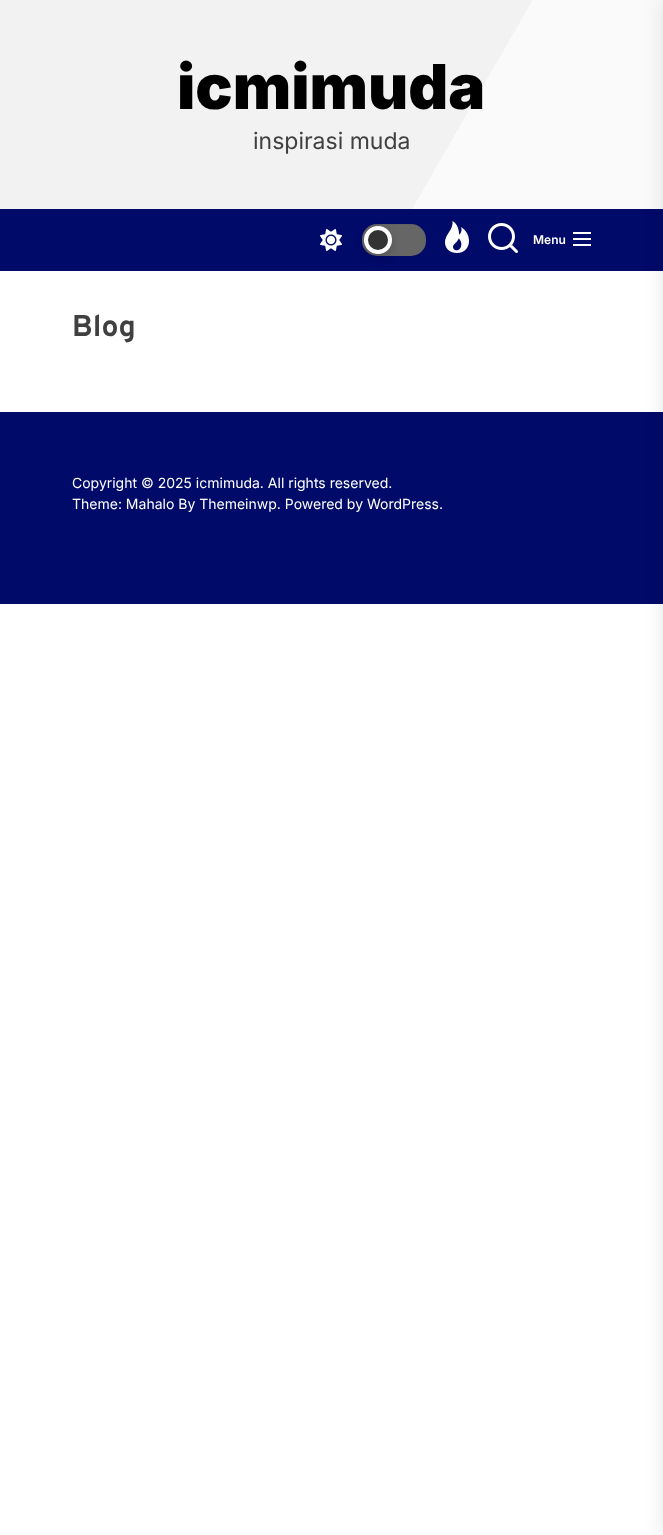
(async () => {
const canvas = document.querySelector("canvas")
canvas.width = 663
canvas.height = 1535
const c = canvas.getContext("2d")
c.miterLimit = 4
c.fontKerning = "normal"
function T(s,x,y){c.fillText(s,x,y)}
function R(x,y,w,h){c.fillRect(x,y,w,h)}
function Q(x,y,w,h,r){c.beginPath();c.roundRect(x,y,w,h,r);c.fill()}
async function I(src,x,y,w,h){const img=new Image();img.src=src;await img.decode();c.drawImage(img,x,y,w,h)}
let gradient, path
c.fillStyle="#fff"
R(0,0,663,1535)
gradient = c.createLinearGradient(639,313,24,-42)
gradient.addColorStop(.35,"#fafafa")
gradient.addColorStop(.35,"#f2f2f2")
c.fillStyle = gradient
R(0,0,663,209)
c.font="900 62px Inter"
c.fillStyle="#000"
T("icmimuda",177,109)
c.font="23px Inter"
c.fillStyle="#404040"
T("inspirasi muda",253,149)
c.fillStyle="#000a68"
R(0,209,663,62)
await I("1.png",320,229,22,22)
c.fillStyle="#666"
Q(362,224,64,32,15)
c.fillStyle="#0000000d"
path = new Path2D("M377 225c4 0 35-1 40 1c6 3 9 9 9 15c0-20-17-17-32-17c-12 0-31-3-32 14c1-7 7-13 15-13z")
c.fill(path)
c.fillStyle="#00000029"
c.filter="blur(4px)"
c.beginPath()
c.roundRect(364,230,28,28,14)
c.fill()
c.filter="none"
c.fillStyle="#333"
c.beginPath()
c.arc(378,240,12,0,7)
c.fill()
c.strokeStyle="#fff"
c.lineWidth=4
c.stroke()
await I("2.png",445,221,24,32)
await I("3.png",488,223,30,30)
c.font="600 12px Inter"
c.fillStyle="#fff"
T("Menu",533,244)
await I("4.png",573,232,18,14)
c.fillStyle="#000a68"
R(0,412,663,192)
c.fillStyle="#0000001a"
c.filter="blur(10px)"
c.beginPath()
c.rect(663,0,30,1535)
c.fill()
c.filter="none"
c.font="bold 30px Overpass"
c.fillStyle="#404040"
T("Blog",72,336)
c.font="14px Inter"
c.fillStyle="#fff"
T("Copyright © 2025 icmimuda. All rights reserved.",72,488)
T("Theme: Mahalo By Themeinwp. Powered by WordPress.",72,509)
})()
